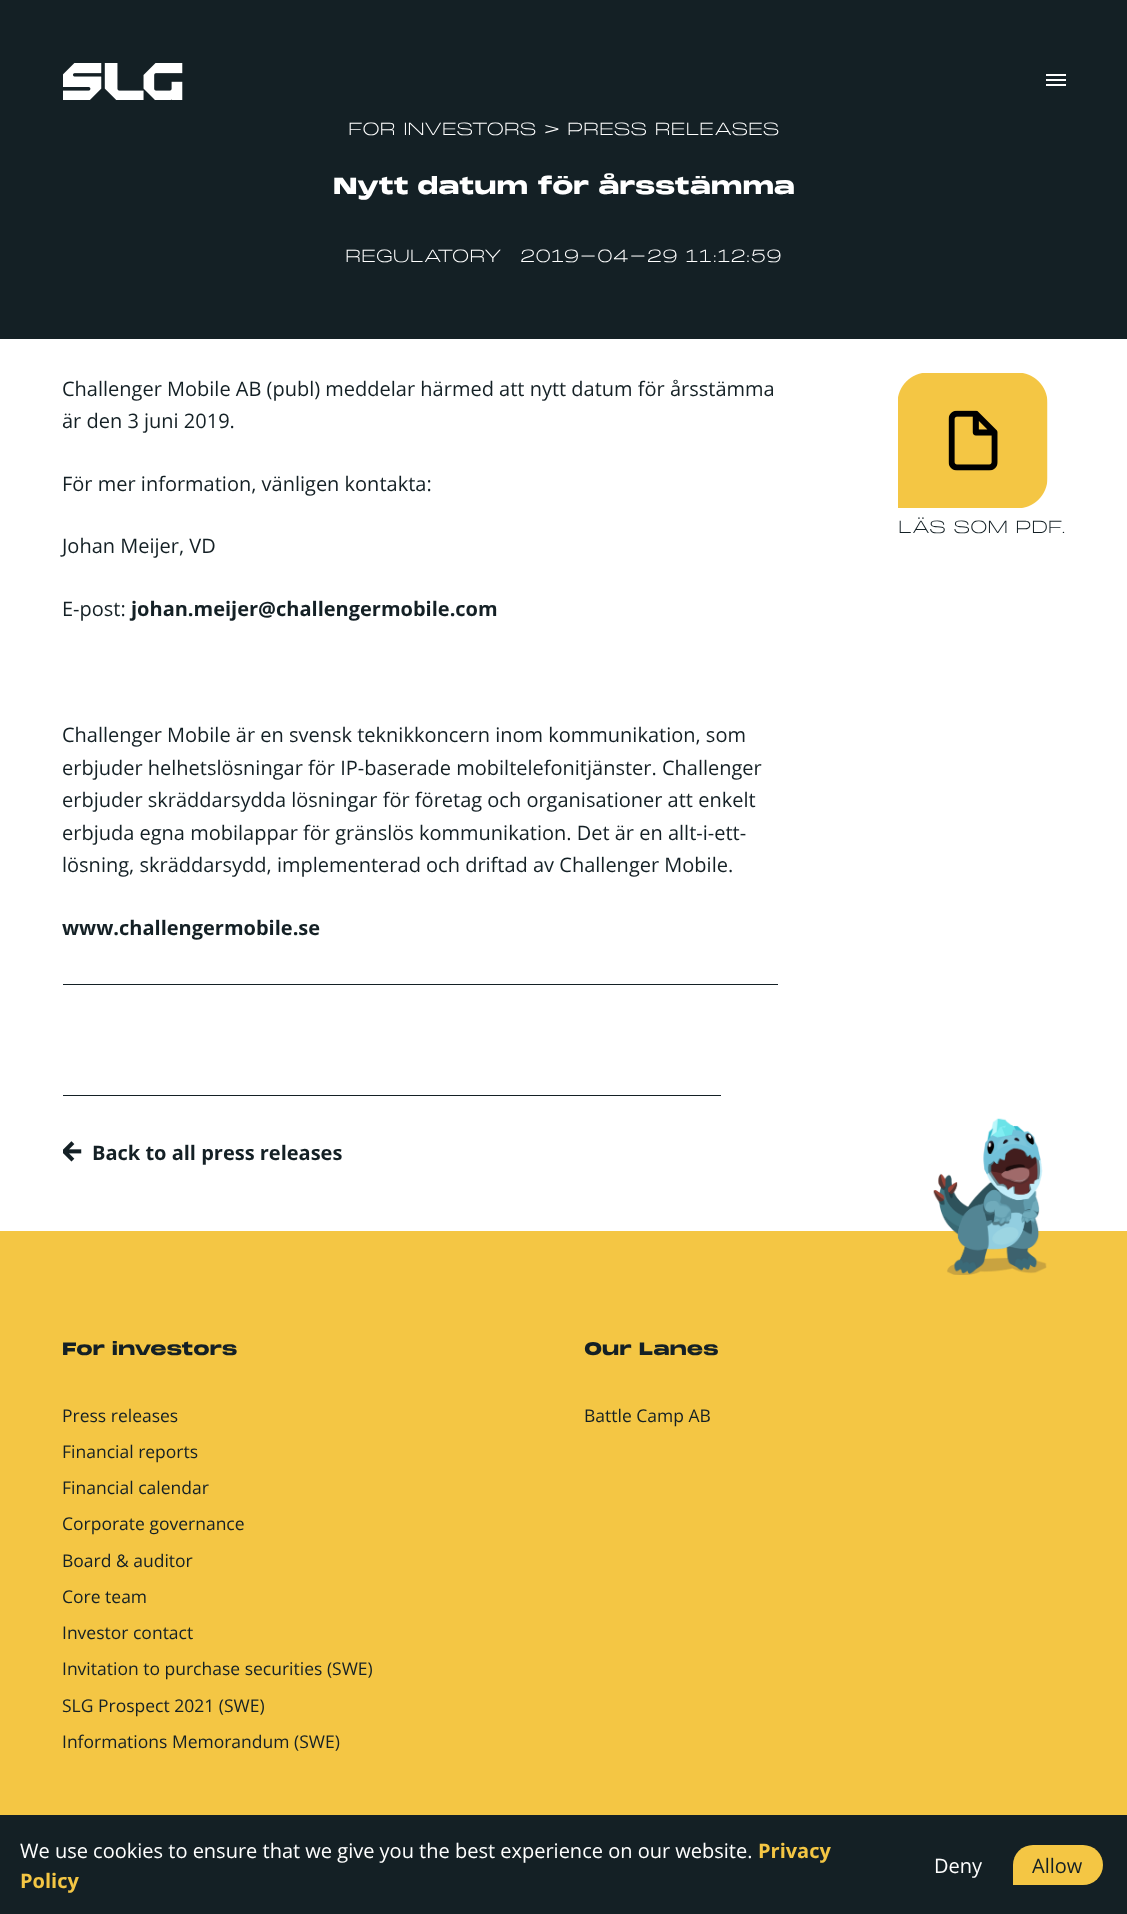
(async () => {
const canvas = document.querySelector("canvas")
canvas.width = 1127
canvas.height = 1914
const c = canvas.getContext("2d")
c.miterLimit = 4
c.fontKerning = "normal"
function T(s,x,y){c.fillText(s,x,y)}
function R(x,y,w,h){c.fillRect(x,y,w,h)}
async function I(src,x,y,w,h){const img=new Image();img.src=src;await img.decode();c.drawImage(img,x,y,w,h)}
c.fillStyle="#fff"
R(0,0,1127,1914)
c.fillStyle="#142025"
R(0,0,1127,339)
await I("1.png",63,63,120,37)
c.fillStyle="#fff"
R(1046,74,20,2)
R(1046,79,20,2)
R(1046,84,20,2)
c.font="300 17.5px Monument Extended"
T("FOR INVESTORS > PRESS RELEASES",348,135)
c.font="900 22.55px Monument Extended"
T("Nytt datum för årsstämma",333,194)
c.font="300 17.5px Monument Extended"
T("REGULATORY 2019-04-29 11:12:59",345,262)
c.font="20px Open Sans"
c.fillStyle="#142025"
T("Challenger Mobile AB (publ) meddelar härmed att nytt datum för årsstämma",62,396)
T("är den 3 juni 2019.",62,428)
T("För mer information, vänligen kontakta:",62,491)
T("Johan Meijer, VD",62,553)
T("E-post:",62,616)
c.font="bold 20px Open Sans"
T("johan.meijer@challengermobile.com",131,616)
c.font="20px Open Sans"
T("Challenger Mobile är en svensk teknikkoncern inom kommunikation, som",62,742)
T("erbjuder helhetslösningar för IP-baserade mobiltelefonitjänster. Challenger",62,775)
T("erbjuder skräddarsydda lösningar för företag och organisationer att enkelt",62,807)
T("erbjuda egna mobilappar för gränslös kommunikation. Det är en allt-i-ett-",62,840)
T("lösning, skräddarsydd, implementerad och driftad av Challenger Mobile.",62,872)
c.font="bold 20px Open Sans"
T("www.challengermobile.se",62,935)
R(63,984,715,1)
await I("2.png",898,373,150,135)
c.font="300 17.5px Monument Extended"
T("LÄS SOM PDF.",898,533)
R(63,1095,658,1)
await I("3.png",63,1141,19,21)
c.font="bold 20px Open Sans"
T("Back to all press releases",92,1160)
c.fillStyle="#f4c644"
R(0,1231,1127,584)
await I("4.png",933,1118,114,157)
c.font="900 17.5px Monument Extended"
c.fillStyle="#142025"
T("For investors",62,1355)
c.font="17.5px Open Sans"
T("Press releases",62,1422)
T("Financial reports",62,1458)
T("Financial calendar",62,1494)
T("Corporate governance",62,1530)
T("Board & auditor",62,1567)
T("Core team",62,1603)
T("Investor contact",62,1639)
T("Invitation to purchase securities (SWE)",62,1675)
T("SLG Prospect 2021 (SWE)",62,1712)
T("Informations Memorandum (SWE)",62,1748)
c.font="900 17.5px Monument Extended"
T("Our Lanes",584,1355)
c.font="17.5px Open Sans"
T("Battle Camp AB",584,1422)
R(0,1815,1127,99)
c.font="20px Open Sans"
c.fillStyle="#fff"
T("We use cookies to ensure that we give you the best experience on our website.",20,1858)
c.font="bold 20px Open Sans"
c.fillStyle="#f4c644"
T("Privacy",758,1858)
T("Policy",20,1888)
c.font="20px Open Sans"
c.fillStyle="#fff"
T("Deny",934,1873)
c.fillStyle="#f4c644"
c.beginPath()
c.roundRect(1013,1845,90,40,[20,20,20,0])
c.fill()
c.fillStyle="#142025"
T("Allow",1032,1873)
})()
